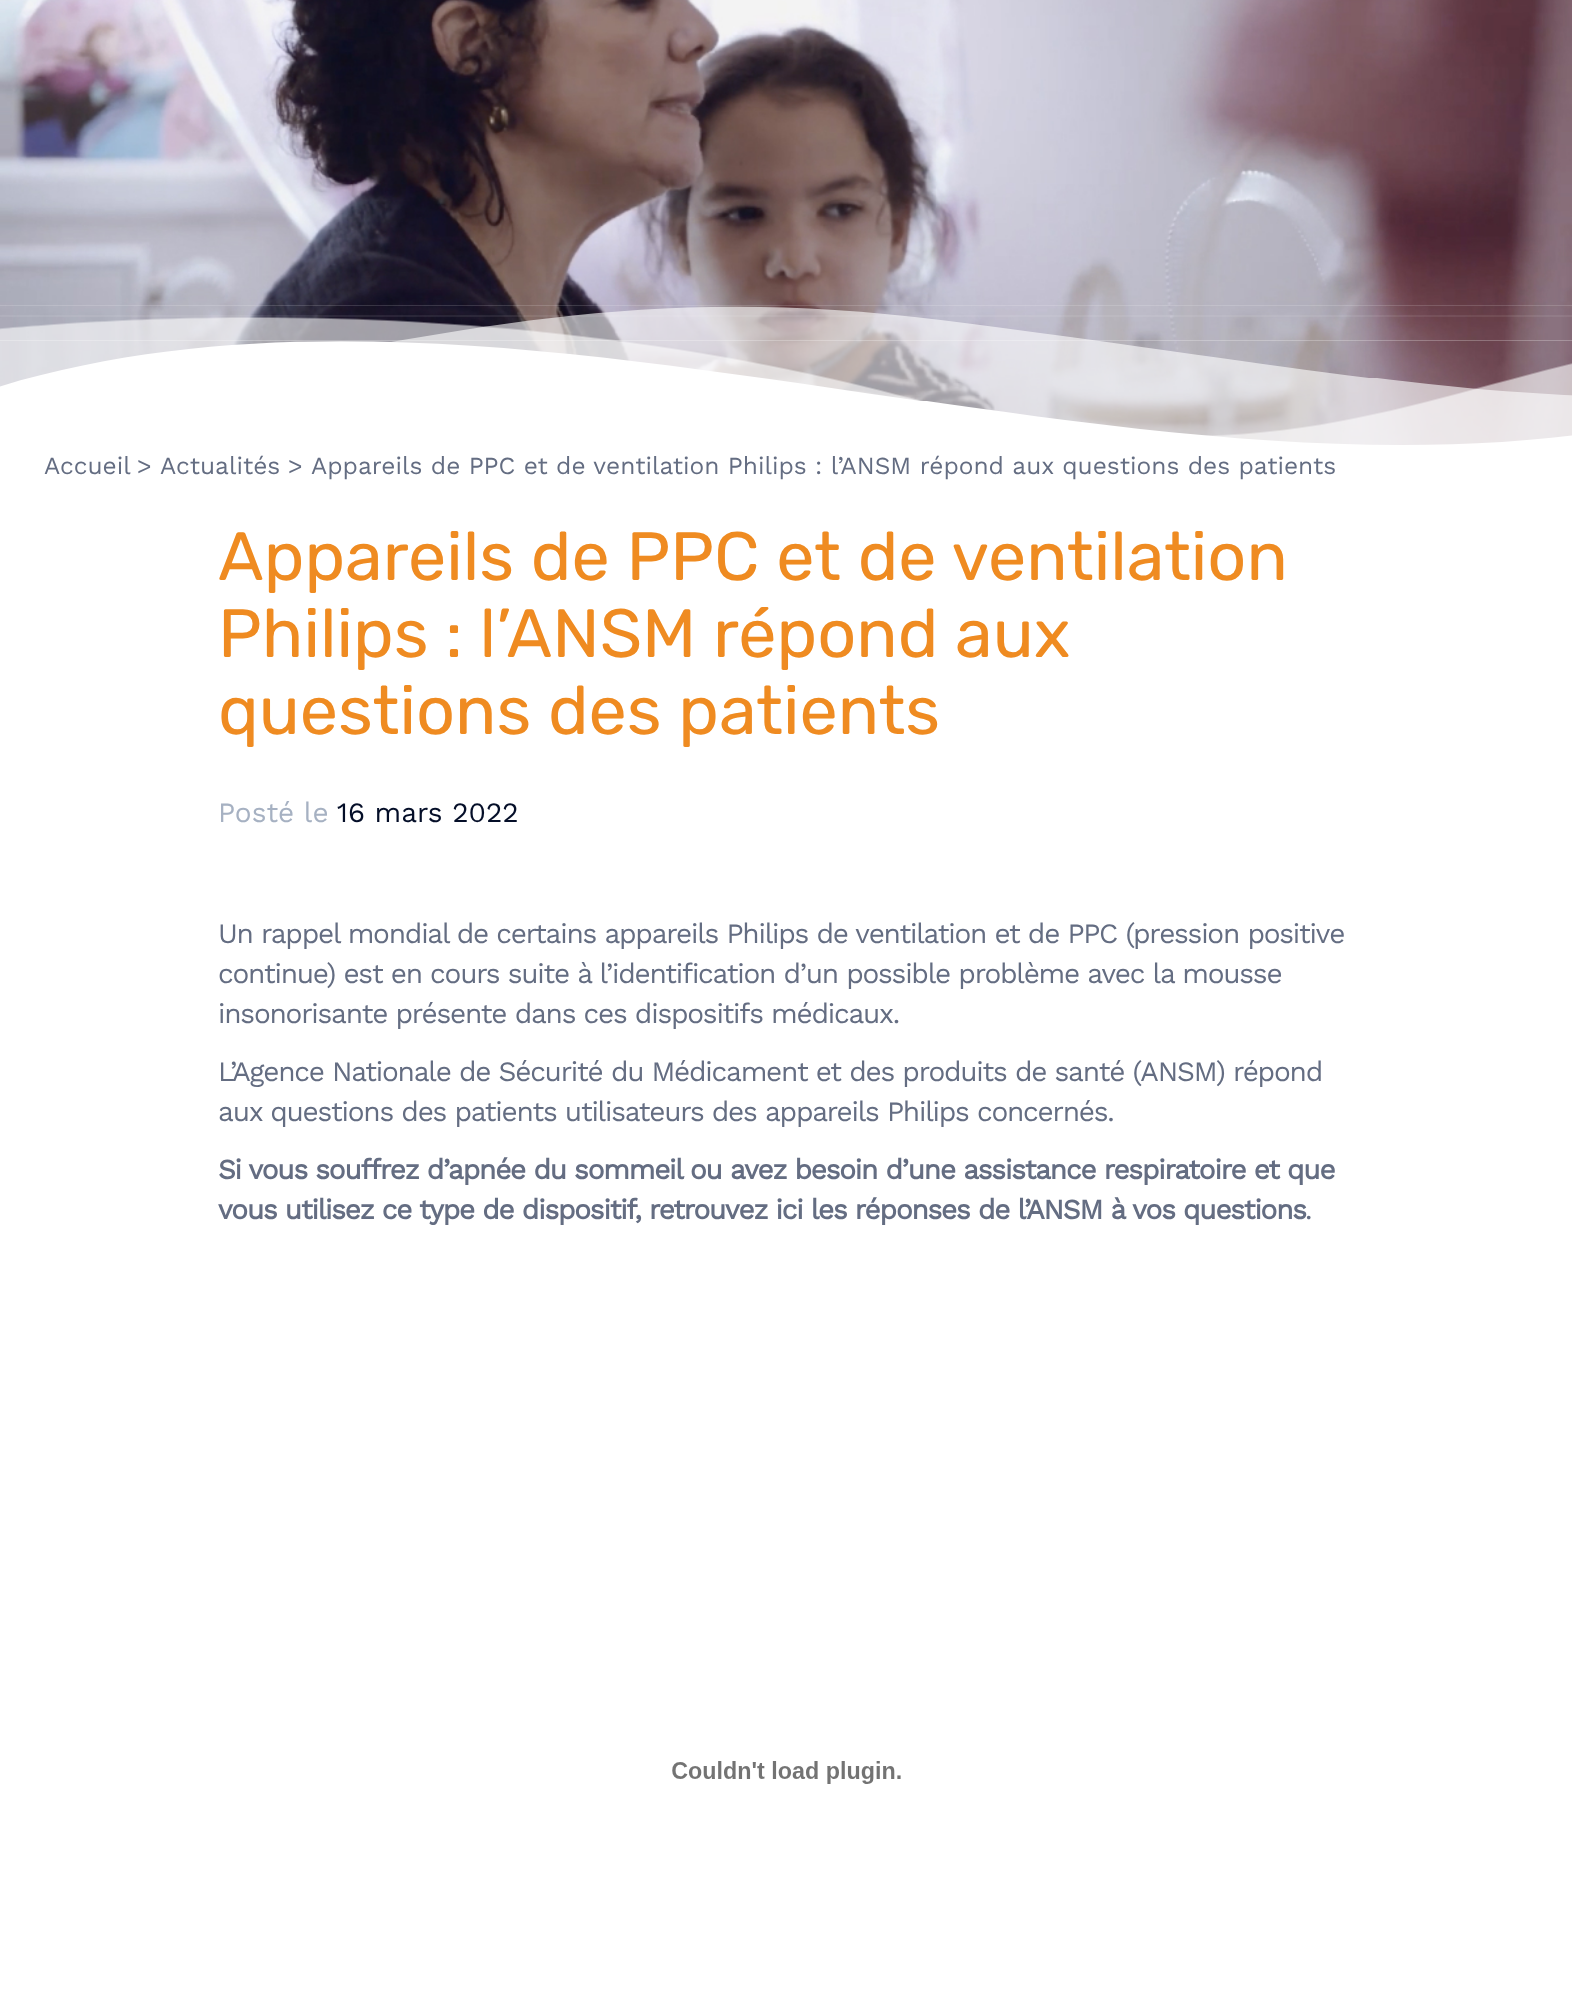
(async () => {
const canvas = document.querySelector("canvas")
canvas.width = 1572
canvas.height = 2014
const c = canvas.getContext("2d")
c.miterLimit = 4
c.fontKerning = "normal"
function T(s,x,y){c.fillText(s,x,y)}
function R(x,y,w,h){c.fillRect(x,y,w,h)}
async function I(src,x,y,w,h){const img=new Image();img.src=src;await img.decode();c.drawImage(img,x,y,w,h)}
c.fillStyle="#fff"
R(0,0,1572,2014)
await I("1.png",0,0,1572,445)
await I("4.png",0,340,1572,180)
await I("2.png",0,305,1572,140)
await I("3.png",0,315,1572,130)
c.font="24.5px Work Sans"
c.fillStyle="#646d82"
T("Accueil",44,474)
T(">",137,474)
T("Actualités",160,474)
T(">",288,474)
T("Appareils de PPC et de ventilation Philips : l’ANSM répond aux questions des patients",311,474)
c.font="68.25px Rubik"
c.fillStyle="#ef8b21"
T("Appareils de PPC et de ventilation",218,580)
T("Philips : l’ANSM répond aux",218,657)
T("questions des patients",218,734)
c.font="28px Work Sans"
c.fillStyle="#a6b1c2"
T("Posté le",218,822)
c.fillStyle="#040e28"
T("16 mars 2022",337,822)
c.letterSpacing="-1.22px"
c.fillStyle="#646d82"
T("Un rappel mondial de certains appareils Philips de ventilation et de PPC (pression positive",218,943)
T("continue) est en cours suite à l’identification d’un possible problème avec la mousse",218,983)
T("insonorisante présente dans ces dispositifs médicaux.",218,1023)
T("L’Agence Nationale de Sécurité du Médicament et des produits de santé (ANSM) répond",218,1081)
T("aux questions des patients utilisateurs des appareils Philips concernés.",218,1121)
c.font="bold 28px Work Sans"
T("Si vous souffrez d’apnée du sommeil ou avez besoin d’une assistance respiratoire et que",218,1179)
T("vous utilisez ce type de dispositif, retrouvez ici les réponses de l’ANSM à vos questions",218,1219)
c.font="28px Work Sans"
T(".",1305,1219)
await I("5.png",672,1761,229,23)
})()
